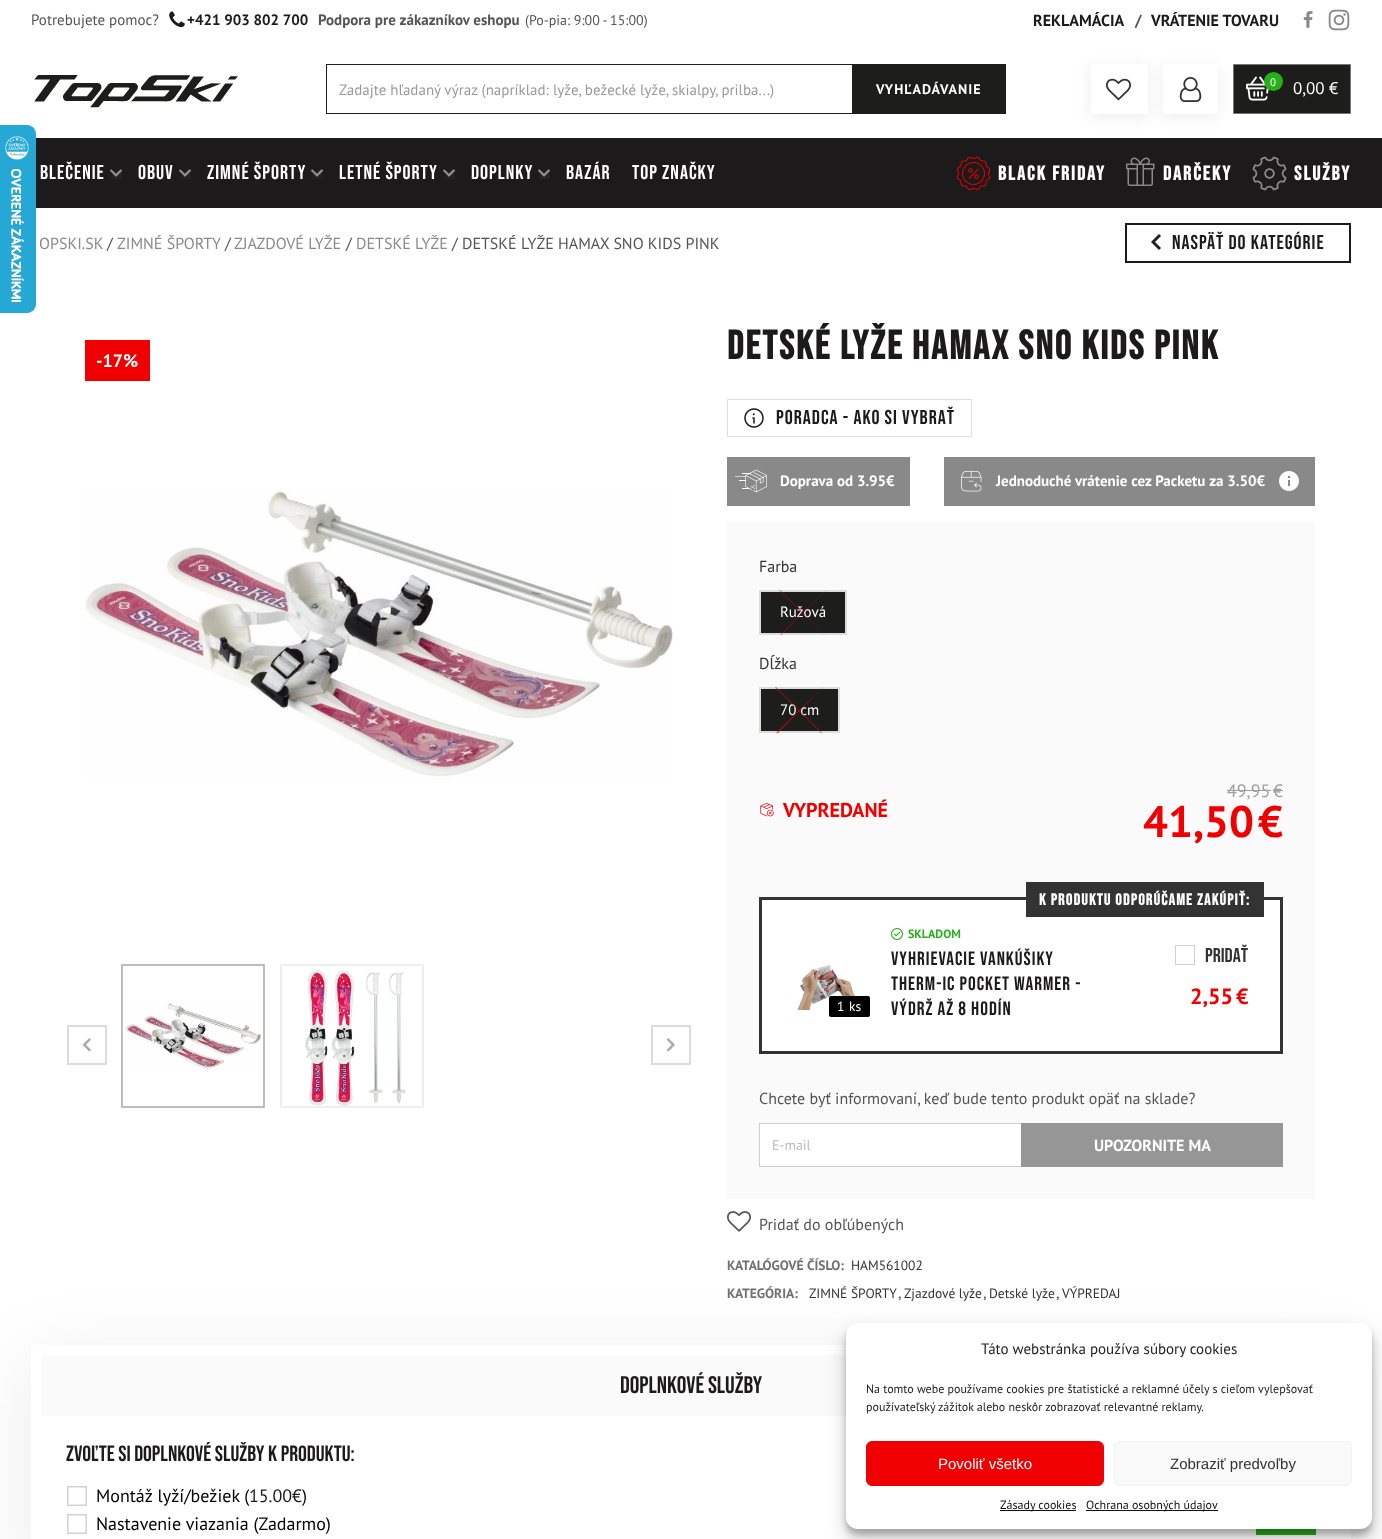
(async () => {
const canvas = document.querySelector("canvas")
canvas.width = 1382
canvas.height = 1539
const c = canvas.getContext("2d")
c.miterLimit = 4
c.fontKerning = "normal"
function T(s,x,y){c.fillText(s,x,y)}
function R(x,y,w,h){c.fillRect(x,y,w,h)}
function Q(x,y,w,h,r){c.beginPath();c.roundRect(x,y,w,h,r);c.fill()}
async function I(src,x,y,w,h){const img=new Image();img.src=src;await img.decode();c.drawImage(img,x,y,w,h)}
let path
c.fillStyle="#fff"
R(0,0,1382,1539)
c.font="15px PT Sans"
c.fillStyle="#545454"
T("Potrebujete pomoc?",31,25)
await I("1.png",169,11,16,17)
c.font="bold 15px PT Sans"
c.fillStyle="#1c1a1a"
T("+421 903 802 700",187,25)
c.fillStyle="#545454"
T("Podpora pre zákazníkov eshopu",318,25)
c.font="14px PT Sans"
T("(Po-pia: 9:00 - 15:00)",525,25)
c.font="bold 16px PT Sans"
c.fillStyle="#1c1a1a"
T("REKLAMÁCIA",1033,26)
c.fillStyle="#545454"
T("/",1135,26)
c.fillStyle="#1c1a1a"
T("VRÁTENIE TOVARU",1151,26)
await I("2.png",1303,11,10,17)
await I("3.png",1328,9,22,22)
await I("4.png",34,75,204,33)
c.strokeStyle="#1d1d1b"
c.strokeRect(326.5,64.5,679,49)
c.font="15px PT Sans"
c.fillStyle="#999"
T("Zadajte hľadaný výraz (napríklad: lyže, bežecké lyže, skialpy, prilba...)",339,95)
c.fillStyle="#1d1d1b"
R(852,65,153,48)
c.letterSpacing="1px"
c.font="bold 14px PT Sans"
c.fillStyle="#fff"
T("VYHĽADÁVANIE",876,94)
c.fillStyle="#1c1a1a"
R(36,138,1346,70)
c.save()
path = new Path2D("M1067 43h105v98h-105zm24 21h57v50h-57z")
c.clip(path,"evenodd")
c.fillStyle="#00000014"
c.filter="blur(7.5px)"
c.beginPath()
c.rect(1091,67,57,50)
c.fill()
c.filter="none"
c.restore()
await I("5.png",1106,78,25,23)
c.fillStyle="#00000014"
c.filter="blur(7.5px)"
c.beginPath()
c.rect(1163,67,55,50)
c.fill()
c.filter="none"
c.fillStyle="#fff"
R(1163,64,55,50)
await I("6.png",1179,77,23,25)
c.fillStyle="#1d1d1b"
c.beginPath()
c.rect(1233.5,64.5,117,49)
c.fill()
c.strokeStyle="#767675"
c.stroke()
await I("7.png",1246,76,24,25)
c.fillStyle="#26b11a"
c.beginPath()
c.arc(1273.5,81.5,9.5,0,7)
c.fill()
c.letterSpacing="0px"
c.font="11px PT Sans"
c.fillStyle="#fff"
T("0",1270,86)
c.font="17px PT Sans"
T("0,00",1293,94)
T("€",1329,94)
c.letterSpacing="1px"
c.font="20px Bebas Neue"
T("BLEČENIE",40,179)
await I("8.png",110,169,12,10)
T("OBUV",138,179)
await I("8.png",179,169,12,10)
T("ZIMNÉ ŠPORTY",207,179)
await I("8.png",311,169,12,10)
T("LETNÉ ŠPORTY",339,179)
await I("8.png",443,169,12,10)
T("DOPLNKY",471,179)
await I("8.png",538,169,12,10)
T("BAZÁR",566,179)
T("TOP ZNAČKY",632,179)
await I("9.png",956,156,35,35)
c.letterSpacing="2px"
c.font="bold 20px Bebas Neue"
T("BLACK FRIDAY",998,180)
await I("10.png",1126,157,29,29)
T("DARČEKY",1163,180)
await I("11.png",1252,156,35,35)
T("SLUŽBY",1294,180)
await I("12.png",0,125,36,188)
c.letterSpacing="0px"
c.font="16px PT Sans"
c.fillStyle="#898989"
T("OPSKI.SK",39,249)
c.fillStyle="#545454"
T("/",107,249)
c.fillStyle="#898989"
T("ZIMNÉ ŠPORTY",117,249)
c.fillStyle="#545454"
T("/",225,249)
c.fillStyle="#898989"
T("ZJAZDOVÉ LYŽE",234,249)
c.fillStyle="#545454"
T("/",346,249)
c.fillStyle="#898989"
T("DETSKÉ LYŽE",356,249)
c.fillStyle="#545454"
T("/ DETSKÉ LYŽE HAMAX SNO KIDS PINK",452,249)
c.strokeStyle="#1c1a1a"
c.lineWidth=2
c.strokeRect(1126,224,224,38)
await I("13.png",1151,234,10,16)
c.letterSpacing="1px"
c.font="20px Bebas Neue"
c.fillStyle="#1c1a1a"
T("NASPÄŤ DO KATEGÓRIE",1172,249)
c.fillStyle="#f00000"
R(85,340,65,41)
c.letterSpacing="0px"
c.font="bold 18px PT Sans"
c.fillStyle="#fff"
T("-17%",96,367)
await I("14.png",85,490,588,290)
c.strokeStyle="#dcdcdc"
c.strokeRect(68,1026,38,38)
await I("15.png",82,1038,9,14)
await I("16.png",125,1003,136,66)
c.strokeStyle="#bdbdbd"
c.strokeRect(122,965,142,142)
await I("17.png",305,970,101,136)
c.strokeStyle="#eee"
c.strokeRect(281,965,142,142)
c.strokeStyle="#dcdcdc"
c.strokeRect(652,1026,38,38)
await I("18.png",666,1038,9,14)
c.letterSpacing="2px"
c.font="bold 40.5px Bebas Neue"
c.fillStyle="#1c1a1a"
T("Detské lyže HAMAX Sno Kids Pink",727,359)
c.strokeStyle="#dedede"
c.lineWidth=1
c.strokeRect(727.5,399.5,244,37)
await I("19.png",744,408,20,20)
c.letterSpacing="1px"
c.font="20px Bebas Neue"
T("Poradca - Ako si vybrať",776,424)
c.fillStyle="#898989"
R(727,457,183,49)
await I("20.png",735,469,32,24)
c.letterSpacing="0px"
c.font="bold 15px PT Sans"
c.fillStyle="#fff"
T("Doprava od 3.95€",780,486)
c.fillStyle="#898989"
R(944,457,371,49)
await I("21.png",960,470,22,22)
c.fillStyle="#fff"
T("Jednoduché vrátenie cez Packetu za 3.50€",996,486)
await I("22.png",1279,471,20,20)
c.fillStyle="#fafafa"
R(727,522,588,677)
c.font="16px PT Sans"
c.fillStyle="#333"
T("Farba",759,572)
c.fillStyle="#1d1d1b"
c.beginPath()
c.rect(760,591,86,43)
c.fill()
c.strokeStyle="#dcdcdc"
c.lineWidth=2
c.stroke()
c.font="15px PT Sans"
c.fillStyle="#fff"
T("Ružová",780,617)
c.save()
c.beginPath()
c.rect(759,590,88,45)
c.clip()
c.fillStyle="#f00000bf"
path = new Path2D("M772 582l62 62l-63-62z")
c.fill(path)
path = new Path2D("M771 644l63-62l-62 62z")
c.fill(path)
c.restore()
c.font="16px PT Sans"
c.fillStyle="#333"
T("Dĺžka",759,669)
c.fillStyle="#1d1d1b"
c.beginPath()
c.rect(760,688,79,44)
c.fill()
c.stroke()
c.font="15px PT Sans"
c.fillStyle="#fff"
T("70 cm",780,715)
c.save()
c.beginPath()
c.rect(759,687,81,46)
c.clip()
c.fillStyle="#f00000bf"
path = new Path2D("M771 682l57 57v1l-58-58z")
c.fill(path)
path = new Path2D("M770 739l58-57l-57 58z")
c.fill(path)
c.restore()
await I("23.png",760,803,14,14)
c.font="bold 20px PT Sans"
c.fillStyle="#f00000"
T("VYPREDANÉ",783,817)
c.font="18px PT Sans"
c.fillStyle="#9f9f9f"
T("49,95",1227,797)
R(1227,790,44,1)
T("€",1273,797)
R(1273,790,10,1)
c.font="bold 44px PT Sans"
c.fillStyle="#f00000"
T("41,50",1143,837)
T("€",1258,837)
c.fillStyle="#fff"
c.beginPath()
c.rect(760.5,898.5,521,154)
c.fill()
c.strokeStyle="#333"
c.lineWidth=3
c.stroke()
c.fillStyle="#333"
R(1026,882,238,35)
c.letterSpacing="1.25px"
c.font="bold 16px Bebas Neue"
c.fillStyle="#fff"
T("K PRODUKTU ODPORÚČAME ZAKÚPIŤ:",1039,905)
await I("24.png",797,965,63,45)
c.fillStyle="#000"
Q(829,996,41,21,2)
c.letterSpacing="0px"
c.font="13.5px PT Sans"
c.fillStyle="#fff"
T("1",837,1011)
T("ks",849,1011)
await I("25.png",891,928,12,12)
c.font="bold 12px PT Sans"
c.fillStyle="#26b11a"
T("SKLADOM",908,938)
c.letterSpacing="1px"
c.font="19.25px Bebas Neue"
c.fillStyle="#1c1a1a"
T("Vyhrievacie vankúšiky",891,965)
T("THERM-IC Pocket Warmer -",891,990)
T("výdrž až 8 hodín",891,1015)
c.strokeStyle="#d2d2d2"
c.lineWidth=1
c.strokeRect(1175.5,945.5,19,19)
c.letterSpacing="0px"
c.font="20px Bebas Neue"
c.fillStyle="#333"
T("PRIDAŤ",1205,962)
c.font="bold 22px PT Sans"
c.fillStyle="#f00000"
T("2,55",1190,1004)
T("€",1236,1004)
c.font="16px PT Sans"
c.fillStyle="#545454"
T("Chcete byť informovaní, keď bude tento produkt opäť na sklade?",759,1104)
c.fillStyle="#fff"
R(760,1124,261,42)
c.fillStyle="#d3ced2"
R(759,1123,262,1)
R(759,1166,262,1)
R(759,1123,1,44)
c.font="14px PT Sans"
c.fillStyle="#bababa"
T("E-mail",772,1150)
c.fillStyle="#969696"
R(1021,1123,262,44)
c.font="bold 16px PT Sans"
c.fillStyle="#fff"
T("UPOZORNITE MA",1094,1151)
await I("26.png",727,1211,24,21)
c.font="16px PT Sans"
c.fillStyle="#545454"
T("Pridať do obľúbených",759,1230)
c.fillStyle="#00000014"
c.filter="blur(37.5px)"
c.beginPath()
c.rect(31,1360,1320,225)
c.fill()
c.filter="none"
c.font="bold 13.5px PT Sans"
c.fillStyle="#707070"
T("KATALÓGOVÉ ČÍSLO:",727,1270)
c.font="13.5px PT Sans"
c.fillStyle="#333"
T("HAM561002",851,1270)
c.font="bold 13.5px PT Sans"
c.fillStyle="#707070"
T("KATEGÓRIA:",727,1298)
c.font="13.5px PT Sans"
c.fillStyle="#333"
T("ZIMNÉ ŠPORTY",809,1298)
c.font="16px PT Sans"
c.fillStyle="#545454"
T(",",898,1298)
c.font="13.5px PT Sans"
c.fillStyle="#333"
T("Zjazdové lyže",904,1298)
c.font="16px PT Sans"
c.fillStyle="#545454"
T(",",983,1298)
c.font="13.5px PT Sans"
c.fillStyle="#333"
T("Detské lyže",989,1298)
c.font="16px PT Sans"
c.fillStyle="#545454"
T(",",1056,1298)
c.font="13.5px PT Sans"
c.fillStyle="#333"
T("VÝPREDAJ",1062,1298)
c.fillStyle="#fff"
R(31,1345,1320,194)
c.fillStyle="#fafafa"
R(41,1355,805,61)
c.font="24px Bebas Neue"
c.fillStyle="#1c1a1a"
T("Doplnkové služby",620,1393)
c.font="22px Bebas Neue"
T("Zvoľte si doplnkové služby k produktu:",66,1461)
c.lineWidth=1.5
c.strokeRect(67.75,1486.75,18.5,18.5)
c.font="18px PT Sans"
c.fillStyle="#000"
T("Montáž lyží/bežiek (",96,1502)
c.fillStyle="#1c1a1a"
T("15.00€",249,1502)
c.fillStyle="#000"
T(")",302,1502)
c.strokeRect(67.75,1514.75,18.5,18.5)
T("Nastavenie viazania (Zadarmo)",96,1530)
c.fillStyle="#26b11a"
R(1256,1529,60,6)
c.fillStyle="#0000003b"
c.filter="blur(3px)"
c.beginPath()
c.roundRect(846,1329,526,206,12)
c.fill()
c.filter="none"
c.fillStyle="#00000030"
c.filter="blur(10px)"
c.beginPath()
c.roundRect(846,1333,526,206,12)
c.fill()
c.filter="none"
c.fillStyle="#fff"
Q(846,1323,526,206,12)
c.font="15px PT Sans"
c.fillStyle="#222"
T("Táto webstránka používa súbory cookies",981,1354)
c.font="12px PT Sans"
T("Na tomto webe používame cookies pre štatistické a reklamné účely s cieľom vylepšovať",866,1393)
T("používateľský zážitok alebo neskôr zobrazovať relevantné reklamy.",866,1411)
c.fillStyle="#f00000"
c.beginPath()
c.roundRect(866.5,1441.5,237,44,5.5)
c.fill()
c.strokeStyle="#f00000"
c.lineWidth=1
c.stroke()
c.font="15px Liberation Sans"
c.fillStyle="#fff"
T("Povoliť všetko",938,1469)
c.fillStyle="#f9f9f9"
c.beginPath()
c.roundRect(1114.5,1441.5,237,44,5.5)
c.fill()
c.strokeStyle="#f2f2f2"
c.stroke()
c.fillStyle="#333"
T("Zobraziť predvoľby",1170,1469)
c.fillStyle="#111"
R(1000,1510,76,1)
c.font="12px PT Sans"
T("Zásady cookies",1000,1509)
R(1086,1510,132,1)
T("Ochrana osobných údajov",1086,1509)
})()
